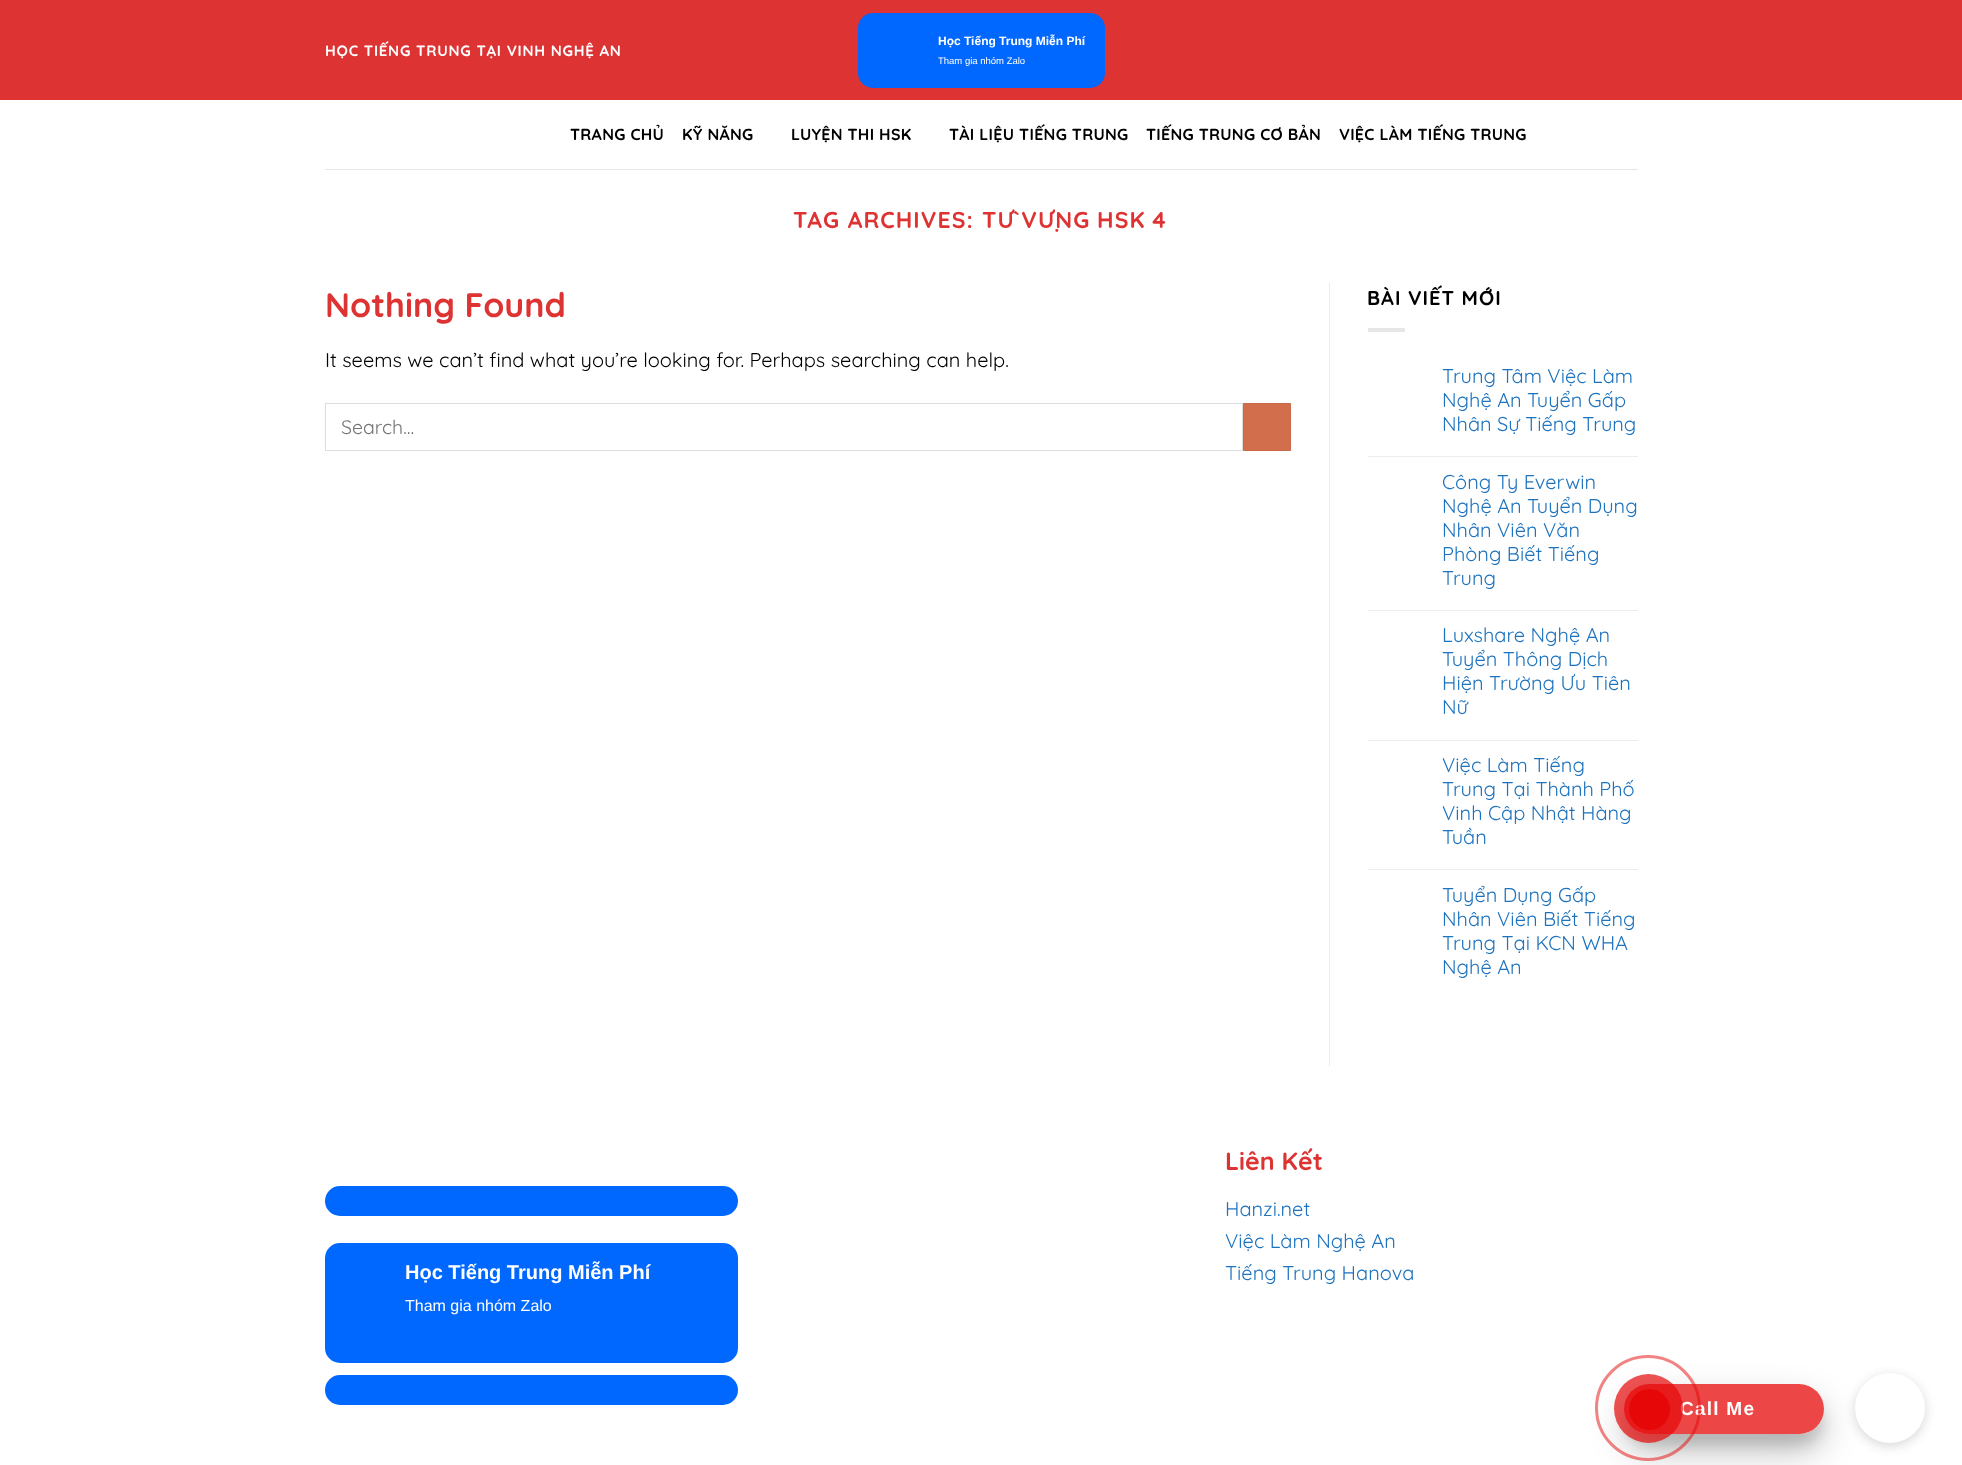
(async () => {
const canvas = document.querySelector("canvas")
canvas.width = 1962
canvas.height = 1465
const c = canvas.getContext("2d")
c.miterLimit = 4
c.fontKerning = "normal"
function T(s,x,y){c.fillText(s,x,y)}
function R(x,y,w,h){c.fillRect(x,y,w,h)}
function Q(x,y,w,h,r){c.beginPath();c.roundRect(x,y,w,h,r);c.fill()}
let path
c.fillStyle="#fff"
R(0,0,1962,1465)
c.fillStyle="#d33"
R(0,0,1962,100)
c.letterSpacing="0.75px"
c.font="bold 15px Quicksand"
c.fillStyle="#fff"
T("HỌC TIẾNG TRUNG TẠI VINH NGHỆ AN",325,56)
c.fillStyle="#0068ff"
Q(858,13,247,75,15)
c.letterSpacing="0px"
c.font="bold 12px Liberation Sans"
c.fillStyle="#fff"
T("Học Tiếng Trung Miễn Phí",938,45)
c.font="9.5px Liberation Sans"
T("Tham gia nhóm Zalo",938,64)
c.letterSpacing="0.3px"
c.font="bold 16px Quicksand"
c.fillStyle="#000"
T("TRANG CHỦ",570,140)
T("KỸ NĂNG",682,140)
T("LUYỆN THI HSK",791,140)
T("TÀI LIỆU TIẾNG TRUNG",949,140)
T("TIẾNG TRUNG CƠ BẢN",1146,140)
T("VIỆC LÀM TIẾNG TRUNG",1339,140)
c.fillStyle="#e6e6e6"
R(325,169,1313,1)
c.letterSpacing="1.1px"
c.font="bold 23px Quicksand"
c.fillStyle="#d33"
T("TAG ARCHIVES:",793,228)
c.wordSpacing="-1px"
T("TỪ VỰNG HSK 4",982,228)
c.letterSpacing="0px"
c.wordSpacing="0px"
c.font="bold 34px Quicksand"
T("Nothing Found",325,317)
c.font="20px Quicksand"
c.fillStyle="#000"
T("It seems we can’t find what you’re looking for. Perhaps searching can help.",325,367)
c.strokeStyle="#ddd"
c.strokeRect(325.5,403.5,917,47)
c.font="19.5px Quicksand"
c.fillStyle="#757575"
T("Search…",341,434)
c.fillStyle="#d26e4b"
c.beginPath()
c.rect(1243.5,403.5,47,47)
c.fill()
c.strokeStyle="#c86947"
c.stroke()
c.fillStyle="#ececec"
R(1329,283,1,783)
c.letterSpacing="1px"
c.font="bold 20px Quicksand"
c.fillStyle="#000"
T("BÀI VIẾT MỚI",1367,305)
c.fillStyle="#e6e6e6"
R(1368,328,37,4)
c.letterSpacing="0px"
c.font="20px Quicksand"
c.fillStyle="#1e73be"
T("Trung Tâm Việc Làm",1442,383)
T("Nghệ An Tuyển Gấp",1442,407)
T("Nhân Sự Tiếng Trung",1442,431)
c.fillStyle="#ececec"
R(1368,456,270,1)
c.fillStyle="#1e73be"
T("Công Ty Everwin",1442,489)
T("Nghệ An Tuyển Dụng",1442,513)
T("Nhân Viên Văn",1442,537)
T("Phòng Biết Tiếng",1442,561)
T("Trung",1442,585)
c.fillStyle="#ececec"
R(1368,610,270,1)
c.fillStyle="#1e73be"
T("Luxshare Nghệ An",1442,642)
T("Tuyển Thông Dịch",1442,666)
T("Hiện Trường Ưu Tiên",1442,690)
T("Nữ",1442,714)
c.fillStyle="#ececec"
R(1368,740,270,1)
c.fillStyle="#1e73be"
T("Việc Làm Tiếng",1442,772)
T("Trung Tại Thành Phố",1442,796)
T("Vinh Cập Nhật Hàng",1442,820)
T("Tuần",1442,844)
c.fillStyle="#ececec"
R(1368,869,270,1)
c.fillStyle="#1e73be"
T("Tuyển Dụng Gấp",1442,902)
T("Nhân Viên Biết Tiếng",1442,926)
T("Trung Tại KCN WHA",1442,950)
T("Nghệ An",1442,974)
c.fillStyle="#0068ff"
Q(325,1186,413,30,15)
Q(325,1243,413,120,15)
c.font="bold 20px Liberation Sans"
c.fillStyle="#fff"
T("Học Tiếng Trung Miễn Phí",405,1279)
c.font="16px Liberation Sans"
T("Tham gia nhóm Zalo",405,1311)
c.fillStyle="#0068ff"
Q(325,1375,413,30,15)
c.font="bold 25px Quicksand"
c.fillStyle="#d33"
T("Liên Kết",1225,1170)
c.font="20px Quicksand"
c.fillStyle="#1e73be"
T("Hanzi.net",1225,1216)
T("Việc Làm Nghệ An",1225,1248)
T("Tiếng Trung Hanova",1225,1280)
c.save()
path = new Path2D("M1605 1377h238v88h-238zm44 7h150c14 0 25 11 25 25c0 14-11 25-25 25h-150c-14 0-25-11-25-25c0-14 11-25 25-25z")
c.clip(path,"evenodd")
c.fillStyle="#0000001a"
c.filter="blur(6px)"
c.beginPath()
c.roundRect(1624,1396,200,50,25)
c.fill()
c.filter="none"
c.restore()
c.save()
path = new Path2D("M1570 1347h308v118h-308zm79 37h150c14 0 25 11 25 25c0 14-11 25-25 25h-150c-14 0-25-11-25-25c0-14 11-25 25-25z")
c.clip(path,"evenodd")
c.fillStyle="#00000040"
c.filter="blur(17.5px)"
c.beginPath()
c.roundRect(1624,1401,200,50,25)
c.fill()
c.filter="none"
c.restore()
c.fillStyle="#e60808bf"
Q(1624,1384,200,50,25)
c.letterSpacing="1.25px"
c.font="bold 19px Liberation Sans"
c.fillStyle="#fff"
T("Call Me",1680,1415)
c.beginPath()
c.arc(1648,1408,51.5,0,7)
c.strokeStyle="#e6080880"
c.lineWidth=3
c.stroke()
c.fillStyle="#e60808b3"
c.beginPath()
c.arc(1648.5,1408.5,34.5,0,7)
c.fill()
c.fillStyle="#e60808"
c.beginPath()
c.arc(1649.5,1409.5,20.5,0,7)
c.fill()
c.fillStyle="#00000014"
c.filter="blur(6px)"
c.beginPath()
c.roundRect(1855,1376,70,70,35)
c.fill()
c.filter="none"
c.filter="blur(6px)"
c.beginPath()
c.roundRect(1855,1376,70,70,35)
c.fill()
c.filter="none"
c.fillStyle="#fff"
c.beginPath()
c.arc(1890,1408,32,0,7)
c.fill()
c.strokeStyle="#fff"
c.lineWidth=6
c.stroke()
})()
